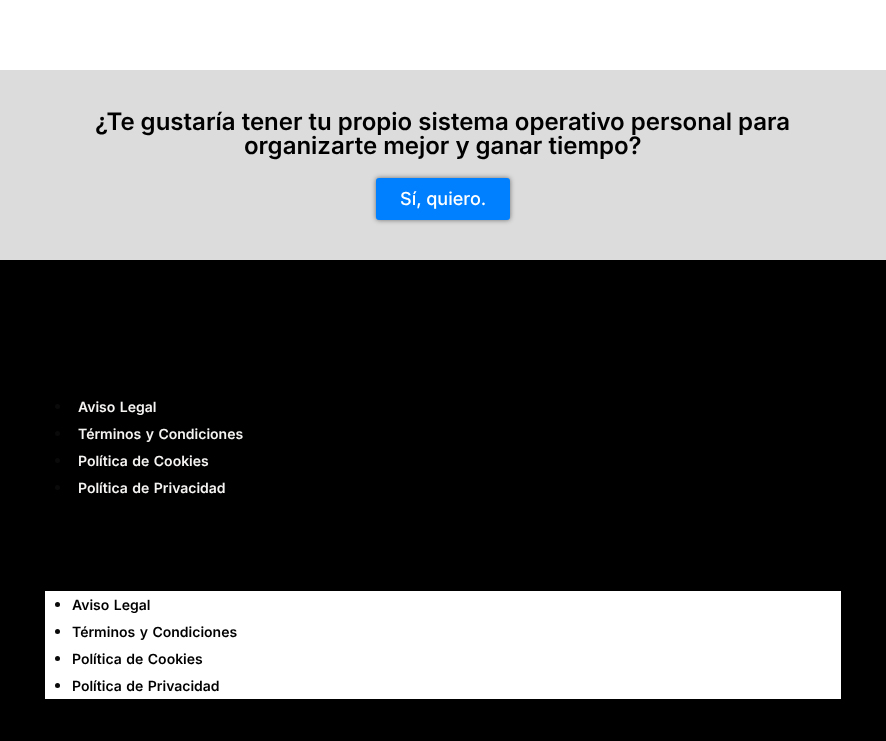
(async () => {
const canvas = document.querySelector("canvas")
canvas.width = 886
canvas.height = 741
const c = canvas.getContext("2d")
c.miterLimit = 4
c.fontKerning = "normal"
function T(s,x,y){c.fillText(s,x,y)}
function R(x,y,w,h){c.fillRect(x,y,w,h)}
function Q(x,y,w,h,r){c.beginPath();c.roundRect(x,y,w,h,r);c.fill()}
c.fillStyle="#fff"
R(0,0,886,741)
c.fillStyle="#dcdcdc"
R(0,70,886,190)
c.font="600 24px Inter"
c.fillStyle="#000"
T("¿Te gustaría tener tu propio sistema operativo personal para",95,130)
T("organizarte mejor y ganar tiempo?",244,154)
c.fillStyle="#00000080"
c.filter="blur(2.5px)"
c.beginPath()
c.roundRect(376,178,134,42,3)
c.fill()
c.filter="none"
c.fillStyle="#0080ff"
Q(376,178,134,42,3)
c.font="500 18px Inter"
c.fillStyle="#fff"
T("Sí, quiero.",400,205)
c.fillStyle="#000"
R(0,260,886,481)
c.fillStyle="#0a0a0a"
c.beginPath()
c.arc(57.5,406.5,2.5,0,7)
c.fill()
c.wordSpacing="1px"
c.font="600 14px Inter"
c.fillStyle="#f6f4f3"
T("Aviso Legal",78,412)
c.fillStyle="#0a0a0a"
c.beginPath()
c.arc(57.5,433.5,2.5,0,7)
c.fill()
c.fillStyle="#f6f4f3"
T("Términos y Condiciones",78,439)
c.fillStyle="#0a0a0a"
c.beginPath()
c.arc(57.5,460.5,2.5,0,7)
c.fill()
c.fillStyle="#f6f4f3"
T("Política de Cookies",78,466)
c.fillStyle="#0a0a0a"
c.beginPath()
c.arc(57.5,487.5,2.5,0,7)
c.fill()
c.fillStyle="#f6f4f3"
T("Política de Privacidad",78,493)
c.fillStyle="#fff"
R(45,591,796,108)
c.fillStyle="#0a0a0a"
c.beginPath()
c.arc(57.5,604.5,2.5,0,7)
c.fill()
c.fillStyle="#000"
T("Aviso Legal",72,610)
c.fillStyle="#0a0a0a"
c.beginPath()
c.arc(57.5,631.5,2.5,0,7)
c.fill()
c.fillStyle="#000"
T("Términos y Condiciones",72,637)
c.fillStyle="#0a0a0a"
c.beginPath()
c.arc(57.5,658.5,2.5,0,7)
c.fill()
c.fillStyle="#000"
T("Política de Cookies",72,664)
c.fillStyle="#0a0a0a"
c.beginPath()
c.arc(57.5,685.5,2.5,0,7)
c.fill()
c.fillStyle="#000"
T("Política de Privacidad",72,691)
})()
